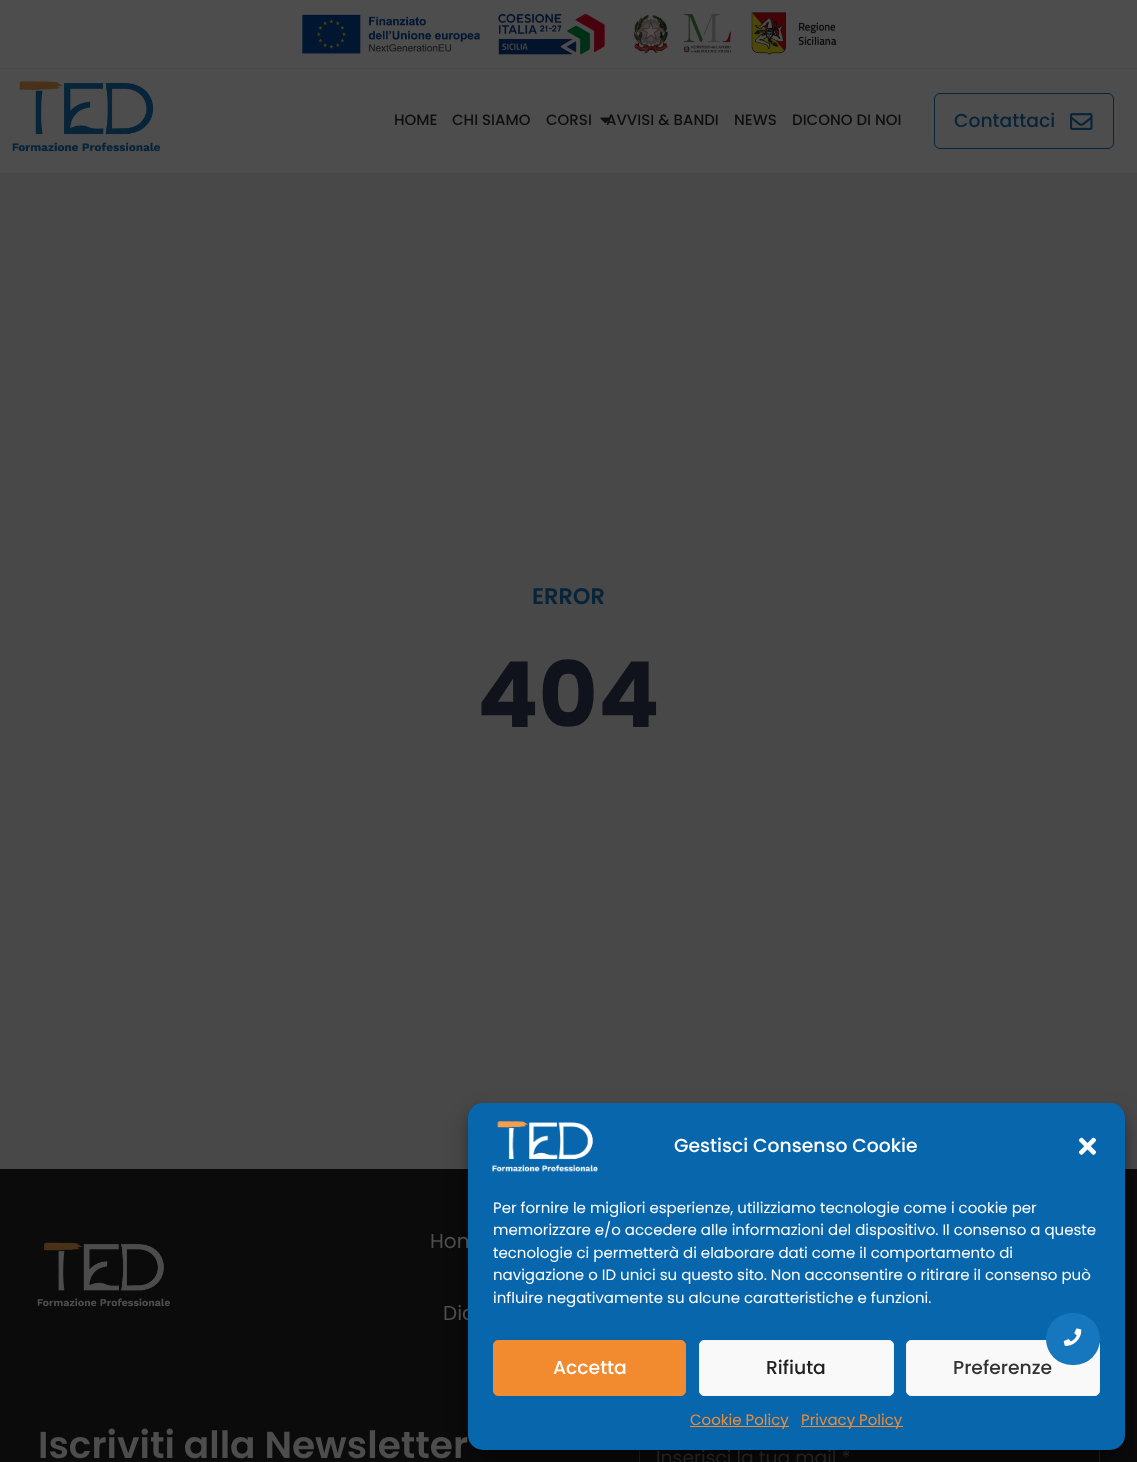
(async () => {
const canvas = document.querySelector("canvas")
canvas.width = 1137
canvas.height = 1462
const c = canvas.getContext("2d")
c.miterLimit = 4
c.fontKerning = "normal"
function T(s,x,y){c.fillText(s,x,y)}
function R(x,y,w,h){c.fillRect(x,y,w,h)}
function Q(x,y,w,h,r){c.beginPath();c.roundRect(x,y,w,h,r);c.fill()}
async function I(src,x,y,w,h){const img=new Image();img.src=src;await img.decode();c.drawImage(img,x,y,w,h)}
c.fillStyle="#4d4d4d"
R(0,0,1137,1462)
c.fillStyle="#484848"
R(0,68,1137,1)
await I("1.png",302,12,535,43)
await I("2.png",12,81,148,71)
c.font="500 15px Poppins"
c.fillStyle="#0f0f0f"
T("HOME",394,125)
T("CHI SIAMO",452,125)
T("CORSI",546,125)
await I("3.png",600,117,11,7)
T("AVVISI & BANDI",606,125)
T("NEWS",734,125)
T("DICONO DI NOI",792,125)
c.beginPath()
c.roundRect(934.5,93.5,179,55,5.5)
c.strokeStyle="#072439"
c.stroke()
c.font="500 18.75px Poppins"
c.fillStyle="#072439"
T("Contattaci",954,127)
await I("4.png",1070,113,23,17)
c.fillStyle="#484848"
R(0,173,1137,996)
c.font="600 22.5px Poppins"
c.fillStyle="#072439"
T("ERROR",532,604)
c.font="bold 91px Poppins"
c.fillStyle="#10131b"
T("404",477,727)
c.fillStyle="#0b0b0b"
R(0,1169,1137,293)
c.strokeStyle="#212121"
c.strokeRect(639.5,1426.5,460,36)
c.fillStyle="#0000003b"
c.filter="blur(4px)"
c.beginPath()
c.roundRect(468,1110,657,348,15)
c.fill()
c.filter="none"
c.fillStyle="#00000030"
c.filter="blur(12.5px)"
c.beginPath()
c.roundRect(468,1115,657,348,15)
c.fill()
c.filter="none"
c.font="20px Poppins"
c.fillStyle="#4d4d4d"
T("Hom",430,1248)
T("Dic",443,1320)
c.font="18.75px Poppins"
c.fillStyle="#212121"
T("Inserisci la tua mail *",656,1464)
c.fillStyle="#0866ad"
Q(468,1103,657,347,15)
await I("5.png",492,1121,106,51)
c.font="500 18.75px Poppins"
c.fillStyle="#fff"
T("Gestisci Consenso Cookie",674,1152)
await I("6.png",1078,1137,19,18)
c.font="15px Poppins"
T("Per fornire le migliori esperienze, utilizziamo tecnologie come i cookie per",493,1213)
T("memorizzare e/o accedere alle informazioni del dispositivo. Il consenso a queste",493,1235)
T("tecnologie ci permetterà di elaborare dati come il comportamento di",493,1258)
T("navigazione o ID unici su questo sito. Non acconsentire o ritirare il consenso può",493,1280)
T("influire negativamente su alcune caratteristiche e funzioni.",493,1303)
c.fillStyle="#f28b2f"
c.beginPath()
c.roundRect(493.5,1340.5,192,55,4.5)
c.fill()
c.strokeStyle="#f28b2f"
c.stroke()
c.font="500 18.75px Poppins"
c.fillStyle="#fff"
T("Accetta",553,1374)
c.fillStyle="#f9f9f9"
c.beginPath()
c.roundRect(699.5,1340.5,194,55,4.5)
c.fill()
c.strokeStyle="#f2f2f2"
c.stroke()
c.fillStyle="#212121"
T("Rifiuta",766,1374)
c.fillStyle="#f9f9f9"
c.beginPath()
c.roundRect(906.5,1340.5,193,55,4.5)
c.fill()
c.stroke()
c.fillStyle="#333"
T("Preferenze",953,1374)
c.fillStyle="#f28b2f"
R(690,1426,99,1)
c.font="15px Poppins"
T("Cookie Policy",690,1425)
R(801,1426,102,1)
T("Privacy Policy",801,1425)
await I("7.png",37,1242,133,65)
c.font="600 37.5px Poppins"
c.fillStyle="#4d4d4d"
T("Iscriviti alla Newsletter",38,1458)
c.fillStyle="#1777be"
Q(1046,1313,54,52,26)
await I("8.png",1063,1328,19,18)
})()
